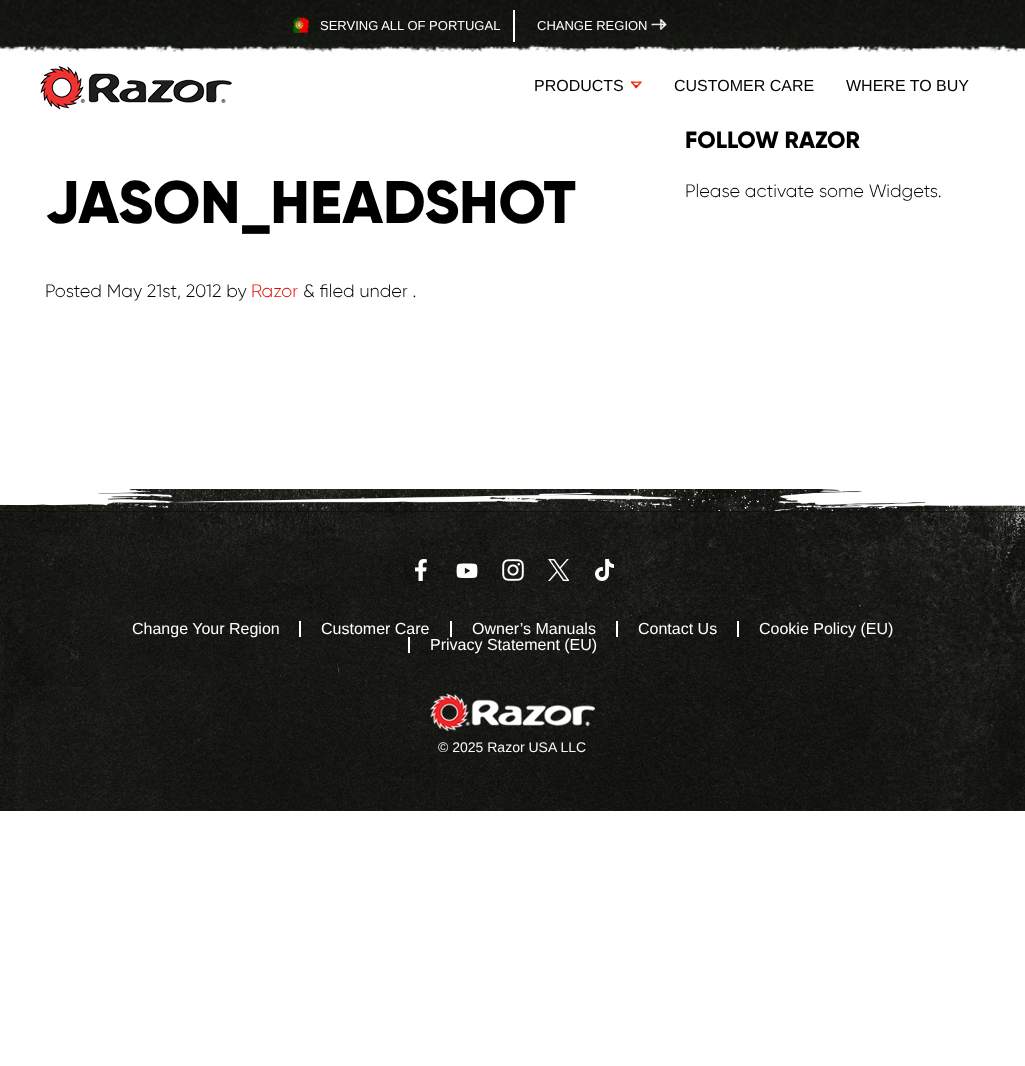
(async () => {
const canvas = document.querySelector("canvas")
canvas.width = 1025
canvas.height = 1066
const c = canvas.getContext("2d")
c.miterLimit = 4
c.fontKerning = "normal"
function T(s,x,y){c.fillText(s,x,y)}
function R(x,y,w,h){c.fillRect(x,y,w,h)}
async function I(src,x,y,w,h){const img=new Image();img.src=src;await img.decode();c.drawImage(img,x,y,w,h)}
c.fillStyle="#fff"
R(0,0,1025,1066)
await I("1.png",0,0,1025,53)
await I("2.png",293,17,16,16)
c.font="13px Liberation Sans"
T("SERVING ALL OF PORTUGAL",320,30)
R(513,10,2,32)
T("CHANGE REGION",537,30)
await I("3.png",651,19,16,11)
await I("4.png",40,66,192,44)
c.font="16px Liberation Sans"
c.fillStyle="#000"
T("PRODUCTS",534,91)
await I("5.png",630,81,12,8)
T("CUSTOMER CARE",674,91)
T("WHERE TO BUY",846,91)
c.font="800 23.5px Gilroy"
T("FOLLOW RAZOR",685,148)
c.font="300 18px Gilroy"
T("Please activate some Widgets.",685,197)
c.font="800 60px Gilroy"
T("JASON_HEADSHOT",45,223)
c.font="300 18px Gilroy"
T("Posted May 21st, 2012 by",45,297)
c.fillStyle="#e10b00"
T("Razor",251,297)
c.fillStyle="#000"
T("& filed under .",303,297)
await I("6.png",0,511,1025,300)
await I("7.png",0,489,1025,23)
await I("8.png",415,559,12,22)
await I("9.png",456,563,22,16)
await I("10.png",502,559,22,22)
await I("11.png",548,559,21,22)
await I("12.png",595,559,19,22)
c.font="16px Liberation Sans"
c.fillStyle="#fff"
T("Change Your Region",132,634)
R(299,621,2,16)
T("Customer Care",321,634)
R(450,621,2,16)
T("Owner’s Manuals",472,634)
R(616,621,2,16)
T("Contact Us",638,634)
R(737,621,2,16)
T("Cookie Policy (EU)",759,634)
R(408,637,2,16)
T("Privacy Statement (EU)",430,650)
await I("13.png",430,693,165,38)
c.font="14px Liberation Sans"
c.fillStyle="#f8f9fa"
T("© 2025 Razor USA LLC",438,752)
})()
